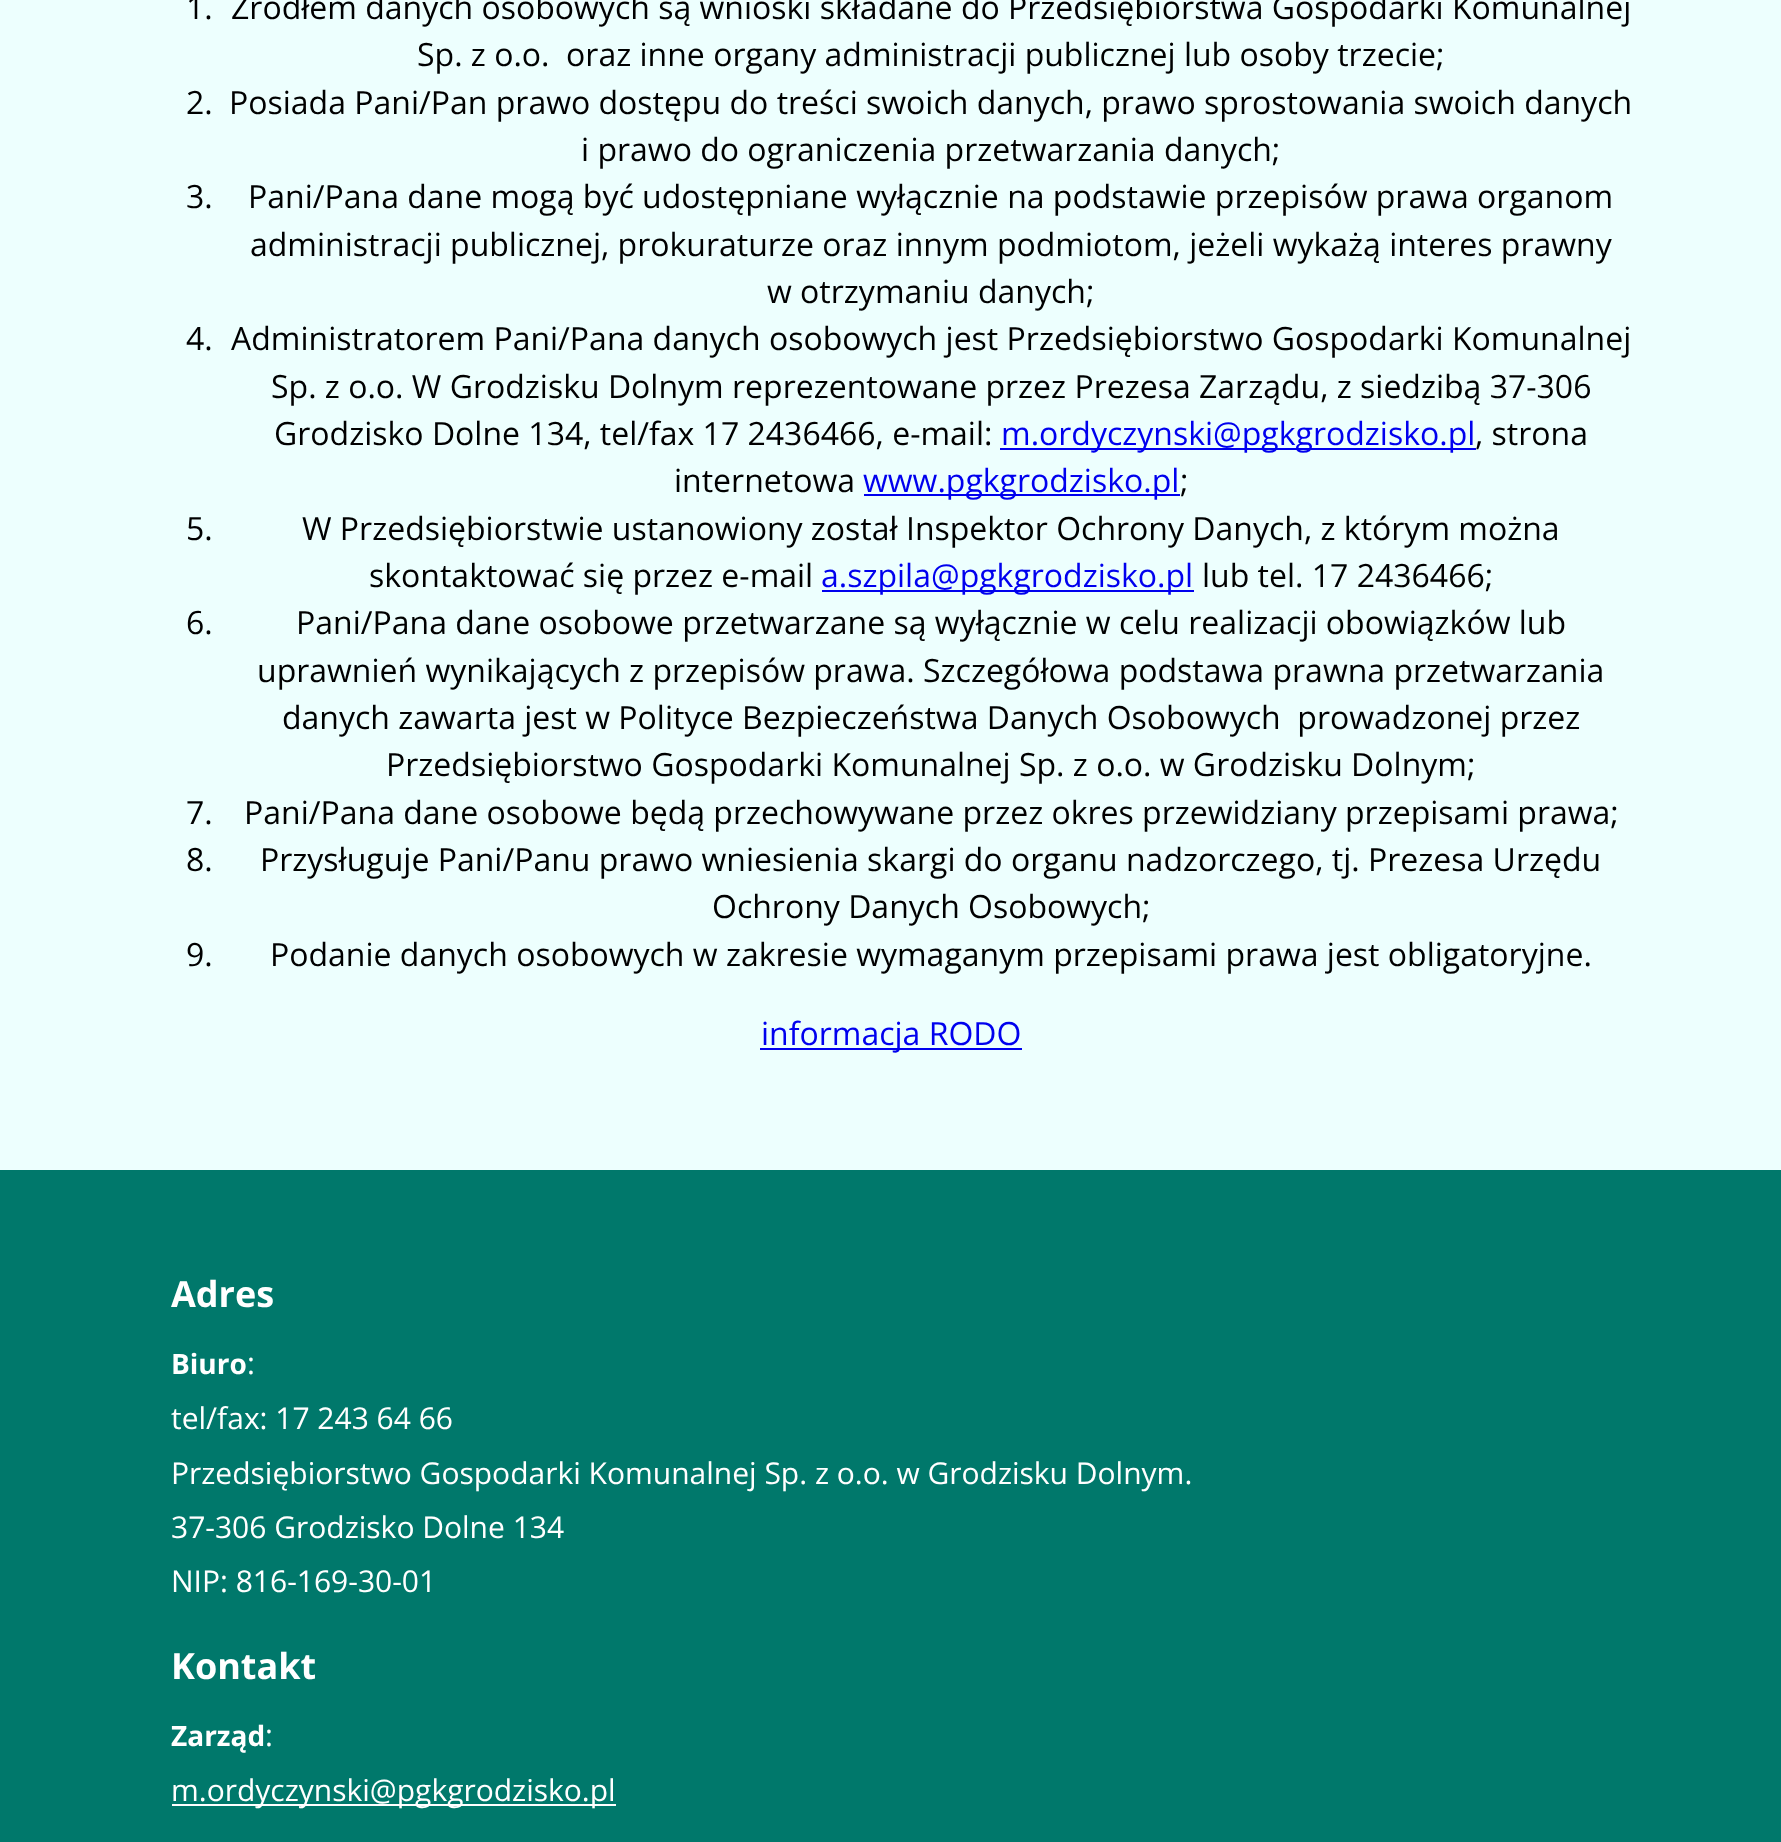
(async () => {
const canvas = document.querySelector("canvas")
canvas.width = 1781
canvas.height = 1842
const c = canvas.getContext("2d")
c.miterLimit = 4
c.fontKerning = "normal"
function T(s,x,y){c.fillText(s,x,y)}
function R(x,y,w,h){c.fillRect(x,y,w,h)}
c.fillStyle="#edfffe"
R(0,0,1781,1842)
c.font="32px Open Sans"
c.fillStyle="#000"
T("1.",186,19)
T("Źródłem danych osobowych są wnioski składane do Przedsiębiorstwa Gospodarki Komunalnej",231,19)
T("Sp. z o.o.  oraz inne organy administracji publicznej lub osoby trzecie;",417,66)
T("2.",186,114)
T("Posiada Pani/Pan prawo dostępu do treści swoich danych, prawo sprostowania swoich danych",229,114)
T("i prawo do ograniczenia przetwarzania danych;",581,161)
T("3.",186,208)
T("Pani/Pana dane mogą być udostępniane wyłącznie na podstawie przepisów prawa organom",248,208)
T("administracji publicznej, prokuraturze oraz innym podmiotom, jeżeli wykażą interes prawny",250,256)
T("w otrzymaniu danych;",767,303)
T("4.",186,350)
T("Administratorem Pani/Pana danych osobowych jest Przedsiębiorstwo Gospodarki Komunalnej",231,350)
T("Sp. z o.o. W Grodzisku Dolnym reprezentowane przez Prezesa Zarządu, z siedzibą 37-306",271,398)
T("Grodzisko Dolne 134, tel/fax 17 2436466, e-mail:",274,445)
c.fillStyle="#00e"
R(1000,448,476,2)
T("m.ordyczynski@pgkgrodzisko.pl",1001,445)
c.fillStyle="#000"
T(", strona",1475,445)
T("internetowa",674,492)
c.fillStyle="#00e"
R(864,494,316,2)
T("www.pgkgrodzisko.pl",863,492)
c.fillStyle="#000"
T(";",1180,492)
T("5.",186,540)
T("W Przedsiębiorstwie ustanowiony został Inspektor Ochrony Danych, z którym można",302,540)
T("skontaktować się przez e-mail",369,587)
c.fillStyle="#00e"
R(822,590,372,2)
T("a.szpila@pgkgrodzisko.pl",821,587)
c.fillStyle="#000"
T("lub tel. 17 2436466;",1202,587)
T("6.",186,634)
T("Pani/Pana dane osobowe przetwarzane są wyłącznie w celu realizacji obowiązków lub",296,634)
T("uprawnień wynikających z przepisów prawa. Szczegółowa podstawa prawna przetwarzania",257,682)
T("danych zawarta jest w Polityce Bezpieczeństwa Danych Osobowych  prowadzonej przez",282,729)
T("Przedsiębiorstwo Gospodarki Komunalnej Sp. z o.o. w Grodzisku Dolnym;",386,776)
T("7.",186,824)
T("Pani/Pana dane osobowe będą przechowywane przez okres przewidziany przepisami prawa;",244,824)
T("8.",186,871)
T("Przysługuje Pani/Panu prawo wniesienia skargi do organu nadzorczego, tj. Prezesa Urzędu",260,871)
T("Ochrony Danych Osobowych;",712,918)
T("9.",186,966)
T("Podanie danych osobowych w zakresie wymaganym przepisami prawa jest obligatoryjne.",270,966)
c.fillStyle="#00e"
R(760,1048,262,2)
T("informacja RODO",761,1045)
c.fillStyle="#00786b"
R(0,1170,1781,672)
c.font="bold 36px Open Sans"
c.fillStyle="#fff"
T("Adres",171,1307)
c.font="bold 28px Open Sans"
T("Biuro",171,1374)
c.font="30px Open Sans"
T(":",247,1374)
T("tel/fax: 17 243 64 66",171,1429)
T("Przedsiębiorstwo Gospodarki Komunalnej Sp. z o.o. w Grodzisku Dolnym.",171,1484)
T("37-306 Grodzisko Dolne 134",171,1538)
T("NIP: 816-169-30-01",171,1592)
c.font="bold 36px Open Sans"
T("Kontakt",171,1679)
c.font="bold 28px Open Sans"
T("Zarząd",171,1746)
c.font="30px Open Sans"
T(":",265,1746)
R(172,1804,444,2)
T("m.ordyczynski@pgkgrodzisko.pl",171,1801)
})()
